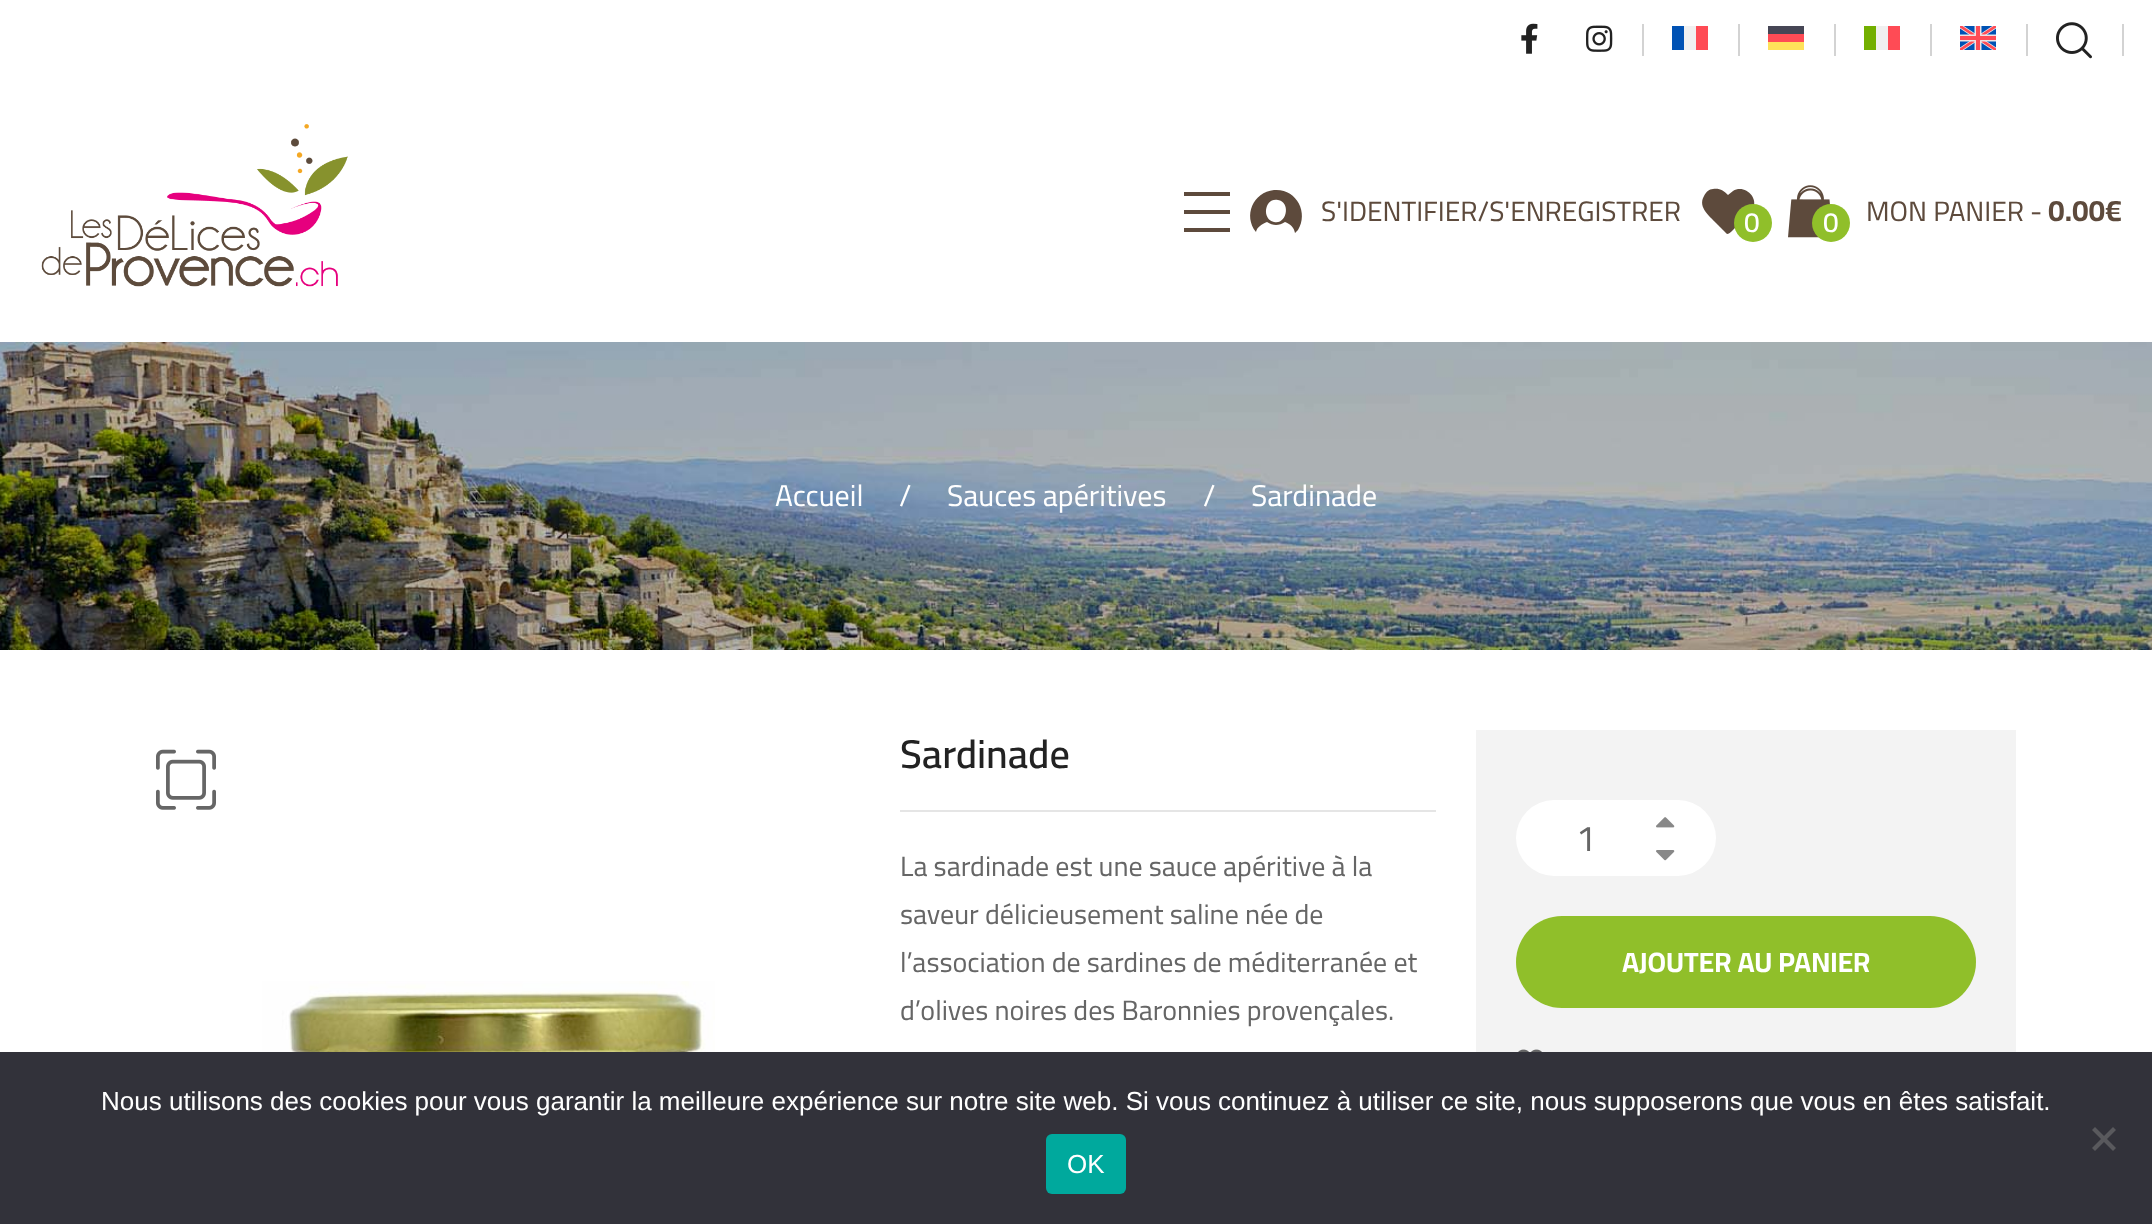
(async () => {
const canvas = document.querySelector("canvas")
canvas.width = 2152
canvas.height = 1224
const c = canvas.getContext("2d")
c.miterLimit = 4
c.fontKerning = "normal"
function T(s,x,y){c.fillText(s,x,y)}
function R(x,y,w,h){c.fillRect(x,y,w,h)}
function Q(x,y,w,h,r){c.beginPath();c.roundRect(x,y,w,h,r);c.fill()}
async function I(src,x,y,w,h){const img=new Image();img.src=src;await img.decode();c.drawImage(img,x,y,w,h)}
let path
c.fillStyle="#fff"
R(0,0,2152,1224)
await I("1.png",1521,23,17,31)
await I("2.png",1586,25,27,27)
c.fillStyle="#d3d3d3"
R(1642,24,2,32)
c.fillStyle="#0052b4"
R(1672,26,12,24)
c.fillStyle="#f0f0f0"
R(1684,26,12,24)
c.fillStyle="#ff4b55"
R(1696,26,12,24)
c.fillStyle="#d3d3d3"
R(1738,24,2,32)
c.fillStyle="#464655"
R(1768,26,36,8)
c.fillStyle="#ff4b55"
R(1768,34,36,8)
c.fillStyle="#ffe15a"
R(1768,42,36,8)
c.fillStyle="#d3d3d3"
R(1834,24,2,32)
c.fillStyle="#73af00"
R(1864,26,12,24)
c.fillStyle="#f0f0f0"
R(1876,26,12,24)
c.fillStyle="#ff4b55"
R(1888,26,12,24)
c.fillStyle="#d3d3d3"
R(1930,24,2,32)
await I("3.png",1960,26,36,24)
R(2026,24,2,32)
await I("4.png",2056,22,36,37)
R(2122,24,2,32)
await I("5.png",41,124,307,163)
c.fillStyle="#5d4a3c"
R(1184,192,46,4)
R(1184,210,46,4)
R(1184,228,46,4)
path = new Path2D("M1274 190c-21 2-31 26-18 42c1-5 6-8 11-10c6 4 12 4 18 0c5 2 9 5 10 11l3-3c11-18-2-42-24-40zm4 10c13 2 9 25-4 22c-13-3-9-25 4-22z")
c.fill(path)
c.font="28px Cairo"
T("S'IDENTIFIER/S'ENREGISTRER",1321,221)
path = new Path2D("M1713 189c-4 0-7 3-9 7c-7 12 7 21 14 29l9 9c3 0 9-7 10-9c5-4 13-11 16-16c6-12-9-25-20-18l-5 4c-4-4-8-7-15-6z")
c.fill(path)
c.fillStyle="#90bf2a"
c.beginPath()
c.arc(1753,223,19,0,7)
c.fill()
c.font="600 28px Cairo"
c.fillStyle="#fff"
T("0",1744,232)
await I("6.png",1788,185,42,53)
c.fillStyle="#90bf2a"
c.beginPath()
c.arc(1831,223,19,0,7)
c.fill()
c.fillStyle="#fff"
T("0",1823,232)
c.font="28px Cairo"
c.fillStyle="#5d4a3c"
T("MON PANIER -",1866,221)
c.font="bold 30px Cairo"
T("0.00€",2048,221)
await I("7.png",0,342,2152,308)
c.font="30px Cairo"
c.fillStyle="#fff"
T("Accueil",775,506)
T("/",899,506)
T("Sauces apéritives",947,506)
T("/",1203,506)
T("Sardinade",1251,506)
await I("8.png",156,749,60,61)
await I("9.png",262,981,453,71)
c.font="600 40px Cairo"
c.fillStyle="#222"
T("Sardinade",900,768)
c.fillStyle="#e5e5e5"
R(900,810,536,2)
c.font="28px Cairo"
c.fillStyle="#666"
T("La sardinade est une sauce apéritive à la",900,876)
T("saveur délicieusement saline née de",900,924)
T("l’association de sardines de méditerranée et",900,972)
T("d’olives noires des Baronnies provençales.",900,1020)
c.fillStyle="#f3f3f3"
R(1476,730,540,322)
c.fillStyle="#fff"
Q(1516,800,200,76,38)
await I("10.png",1656,817,19,11)
c.font="36px Cairo"
c.fillStyle="#666"
T("1",1576,851)
await I("11.png",1656,850,19,11)
c.fillStyle="#90bf2a"
Q(1516,916,460,92,46)
c.font="bold 28px Cairo"
c.fillStyle="#fff"
T("AJOUTER AU PANIER",1622,972)
await I("12.png",1518,1049,24,3)
c.fillStyle="#32323a"
R(0,1052,2152,172)
c.font="26px Liberation Sans"
c.fillStyle="#fff"
T("Nous utilisons des cookies pour vous garantir la meilleure expérience sur notre site web. Si vous continuez à utiliser ce site, nous supposerons que vous en êtes satisfait.",101,1110)
c.fillStyle="#59595d"
path = new Path2D("M2113 1127l3 3l-21 21l-3-3z")
c.fill(path)
path = new Path2D("M2092 1130l3-3l21 21l-3 3z")
c.fill(path)
c.fillStyle="#00a99d"
Q(1046,1134,80,60,6)
c.fillStyle="#fff"
T("OK",1067,1173)
})()
